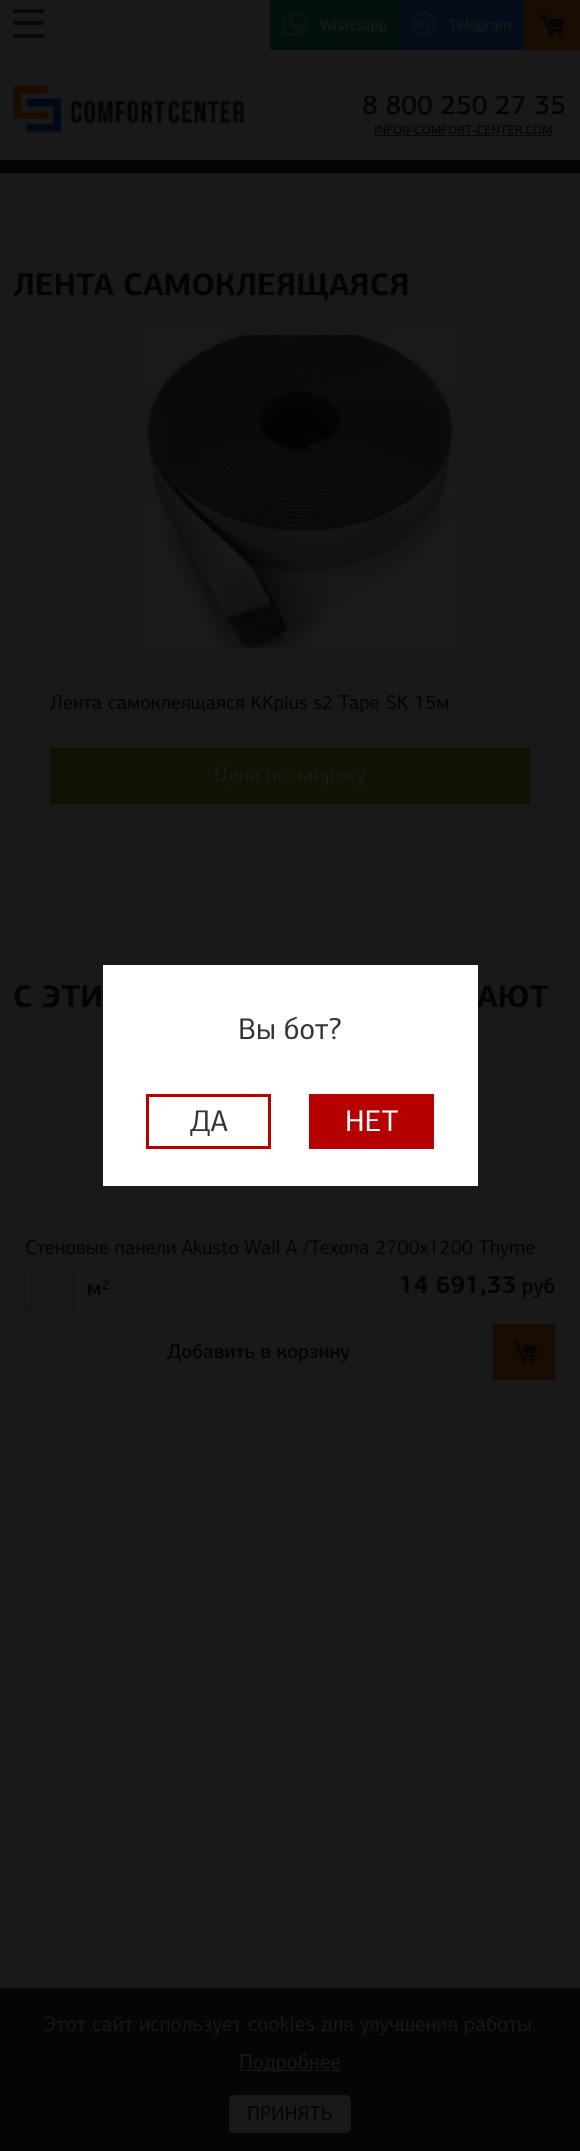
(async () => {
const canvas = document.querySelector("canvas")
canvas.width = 580
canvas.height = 2151
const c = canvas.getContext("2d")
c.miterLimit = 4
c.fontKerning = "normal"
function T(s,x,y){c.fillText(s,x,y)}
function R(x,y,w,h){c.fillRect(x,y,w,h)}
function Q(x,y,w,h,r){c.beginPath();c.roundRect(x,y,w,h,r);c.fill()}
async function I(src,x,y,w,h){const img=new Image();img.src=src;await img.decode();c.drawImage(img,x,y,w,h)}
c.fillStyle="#191919"
R(0,0,580,2151)
c.fillStyle="#030406"
R(0,160,580,13)
c.fillStyle="#090909"
R(13,9,31,4)
R(13,34,31,4)
R(13,21,31,4)
c.fillStyle="#03110a"
R(270,0,129,50)
await I("1.png",283,12,25,24)
c.font="500 15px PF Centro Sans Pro"
c.fillStyle="#191919"
T("Whatsapp",320,30)
c.fillStyle="#050e18"
R(399,0,125,50)
await I("2.png",411,12,26,24)
c.fillStyle="#191919"
T("Telegram",449,30)
c.fillStyle="#170d03"
R(524,0,56,50)
await I("3.png",539,15,26,22)
await I("4.png",13,85,232,48)
c.font="500 27.5px PF Centro Sans Pro"
c.fillStyle="#030406"
T("8 800 250 27 35",362,114)
c.font="500 12.5px PF Centro Sans Pro"
T("INFO@COMFORT-CENTER.COM",374,134)
c.fillStyle="#050505"
R(375,135,178,1)
c.fillStyle="#101112"
R(13,204,42,1)
R(83,204,51,1)
R(163,204,116,1)
R(308,204,70,1)
c.font="bold 31.25px PF Centro Sans Pro"
c.fillStyle="#030406"
T("ЛЕНТА САМОКЛЕЯЩАЯСЯ",13,295)
await I("5.png",146,335,308,313)
c.font="20px PF Centro Sans Pro"
T("Лента самоклеящаяся KKplus s2 Tape SK 15м",50,709)
c.fillStyle="#0e1303"
R(50,748,480,56)
c.font="500 20px PF Centro Sans Pro"
c.fillStyle="#191919"
T("Цена по запросу",214,781)
await I("6.png",0,892,580,533)
c.font="bold 31.25px PF Centro Sans Pro"
c.fillStyle="#030406"
T("С ЭТИ",13,1007)
T("АЮТ",477,1007)
c.font="20px PF Centro Sans Pro"
T("Стеновые панели Akusto Wall A /Texona 2700x1200 Thyme",25,1254)
c.strokeStyle="#121314"
c.strokeRect(25.5,1268.5,49,42)
c.font="500 21.25px PF Centro Sans Pro"
T("м",87,1295)
c.font="21.25px Liberation Sans"
T("²",102,1295)
c.font="bold 25px PF Centro Sans Pro"
T("14 691,33",399,1293)
c.font="500 21.25px PF Centro Sans Pro"
T("руб",522,1293)
c.font="500 20px PF Centro Sans Pro"
T("Добавить в корзину",167,1358)
c.fillStyle="#170d03"
R(493,1324,62,56)
await I("7.png",512,1341,25,22)
c.fillStyle="#fff"
R(103,965,375,221)
c.font="30px PF Centro Sans Pro"
c.fillStyle="#333"
T("Вы бот?",238,1039)
c.strokeStyle="#b50102"
c.lineWidth=3
c.strokeRect(147.5,1095.5,122,52)
T("ДА",190,1131)
c.fillStyle="#b50102"
R(309,1094,125,55)
c.fillStyle="#fff"
T("НЕТ",345,1131)
c.fillStyle="#050505"
R(0,1988,580,163)
c.font="21.25px PF Centro Sans Pro"
c.fillStyle="#191919"
T("Этот сайт использует cookies для улучшения работы.",44,2031)
R(239,2070,102,1)
T("Подробнее",239,2069)
Q(229,2095,122,38,5)
c.font="20px PF Centro Sans Pro"
c.fillStyle="#030406"
T("ПРИНЯТЬ",247,2120)
})()
